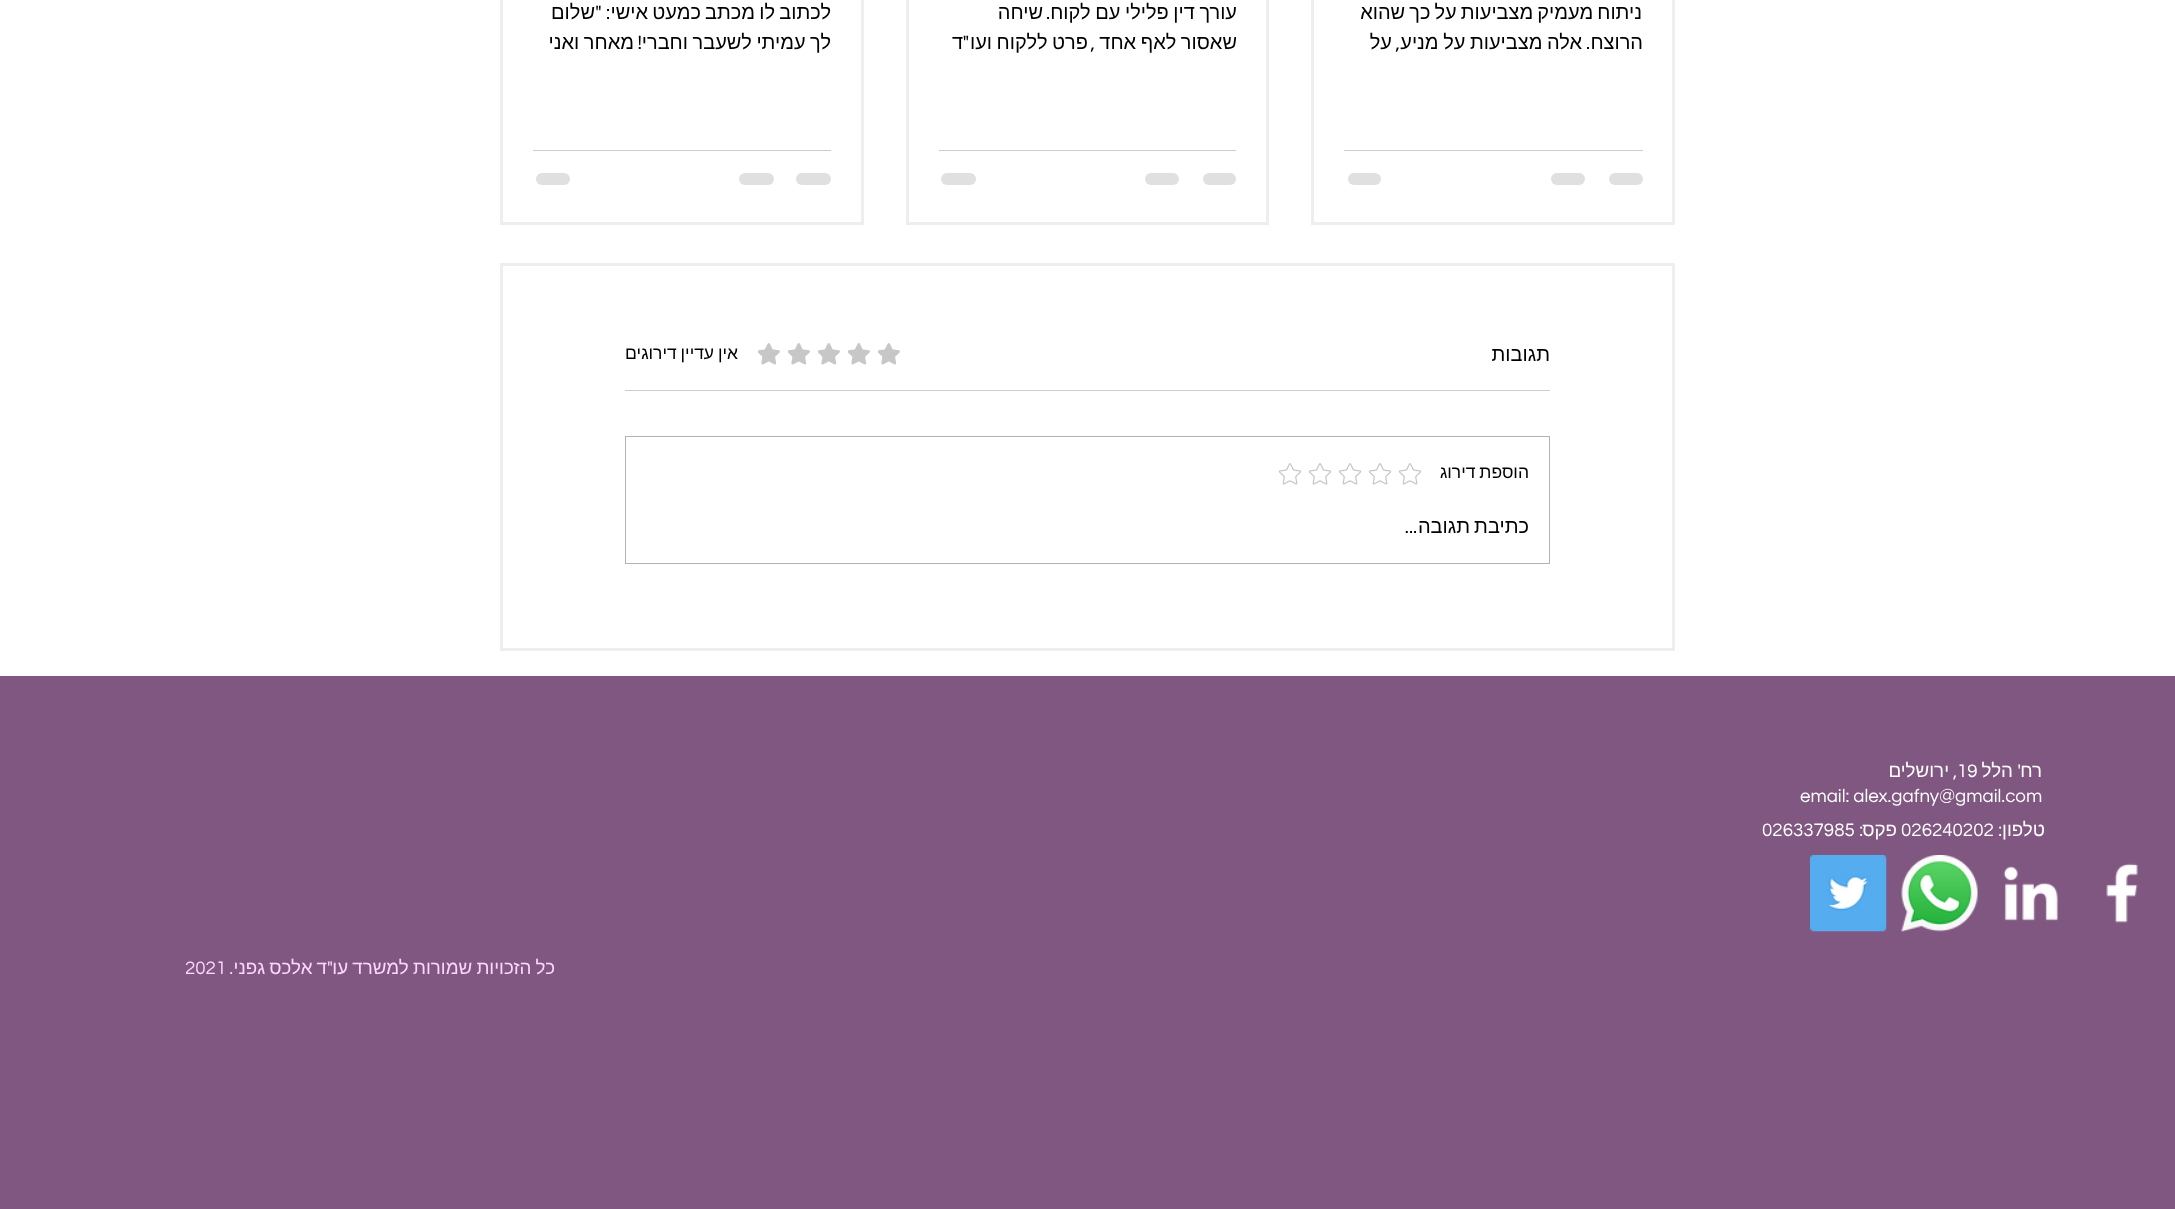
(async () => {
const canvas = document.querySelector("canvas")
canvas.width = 2175
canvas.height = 1209
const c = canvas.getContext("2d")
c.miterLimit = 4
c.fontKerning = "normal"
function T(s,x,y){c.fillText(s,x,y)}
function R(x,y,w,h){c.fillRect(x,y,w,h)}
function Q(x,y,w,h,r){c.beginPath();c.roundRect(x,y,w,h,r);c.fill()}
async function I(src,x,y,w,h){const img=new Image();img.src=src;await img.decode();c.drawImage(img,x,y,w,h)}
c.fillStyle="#fff"
R(0,0,2175,1209)
c.strokeStyle="#efeeee"
c.lineWidth=3
c.strokeRect(1312.5,-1.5,361,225)
c.save()
c.beginPath()
c.rect(1344,0,299,58)
c.clip()
c.wordSpacing="-1.5px"
c.direction="rtl"
c.font="20px Liberation Sans"
c.fillStyle="#000"
T("ניתוח מעמיק מצביעות על כך שהוא",1642,19)
c.restore()
c.direction="rtl"
c.font="20px Liberation Sans"
c.fillStyle="#000"
T("הרוצח",1643,49)
c.font="20px Questrial"
T(".",1590,49)
c.wordSpacing="-1px"
c.font="20px Liberation Sans"
T("אלה מצביעות על מניע",1582,49)
c.wordSpacing="0px"
c.font="20px Questrial"
T(",",1400,49)
c.font="20px Liberation Sans"
T("על",1392,49)
c.fillStyle="#ccc"
R(1344,150,299,1)
c.fillStyle="#e0e0e0"
Q(1609,173,34,12,6)
Q(1551,173,34,12,6)
Q(1348,173,33,12,6)
c.strokeRect(907.5,-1.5,360,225)
c.save()
c.beginPath()
c.rect(939,0,297,58)
c.clip()
c.wordSpacing="-1px"
c.fillStyle="#000"
T("עורך דין פלילי עם לקוח",1237,19)
c.restore()
c.font="20px Questrial"
c.fillStyle="#000"
T(".",1050,19)
c.font="20px Liberation Sans"
T("שיחה",1043,19)
c.save()
c.beginPath()
c.rect(939,0,297,58)
c.clip()
c.wordSpacing="-1px"
T("שאסור לאף אחד",1237,49)
c.restore()
c.wordSpacing="-1px"
T("פרט ללקוח ועו",1088,49)
c.wordSpacing="0px"
c.font="20px Questrial"
T("\"",969,49)
c.font="20px Liberation Sans"
T("ד",963,49)
c.font="20px Questrial"
T(",",1095,49)
c.fillStyle="#ccc"
R(939,150,297,1)
c.fillStyle="#e0e0e0"
Q(1203,173,33,12,6)
Q(1145,173,34,12,6)
Q(941,173,35,12,6)
c.strokeRect(501.5,-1.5,361,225)
c.font="20px Liberation Sans"
c.fillStyle="#000"
T("לכתוב",831,19)
T("לו",775,19)
T("מכתב",755,19)
T("כמעט",701,19)
T("אישי",648,19)
c.font="20px Questrial"
T(": \"",610,19)
c.font="20px Liberation Sans"
T("שלום",595,19)
c.save()
c.beginPath()
c.rect(533,0,298,58)
c.clip()
c.wordSpacing="-1px"
T("לך עמיתי לשעבר וחברי",831,49)
c.restore()
c.font="20px Questrial"
T("!",642,49)
c.wordSpacing="-1px"
c.font="20px Liberation Sans"
T("מאחר ואני",634,49)
c.fillStyle="#ccc"
R(533,150,298,1)
c.fillStyle="#e0e0e0"
Q(796,173,35,12,6)
Q(739,173,35,12,6)
Q(536,173,34,12,6)
c.strokeRect(501.5,264.5,1172,385)
c.wordSpacing="0px"
c.fillStyle="#000"
T("תגובות",1550,361)
await I("1.png",878,343,22,22)
await I("1.png",848,343,22,22)
await I("1.png",818,343,22,22)
await I("1.png",788,343,22,22)
await I("1.png",758,343,22,22)
c.wordSpacing="-1px"
c.font="17.5px Liberation Sans"
T("אין עדיין דירוגים",738,359)
c.fillStyle="#ccc"
R(625,390,925,1)
c.strokeStyle="#b3b3b3"
c.lineWidth=1
c.strokeRect(625.5,436.5,924,127)
c.fillStyle="#000"
T("הוספת דירוג",1529,478)
await I("2.png",1398,463,24,22)
await I("2.png",1368,463,24,22)
await I("2.png",1338,463,24,22)
await I("2.png",1308,463,24,22)
await I("2.png",1278,463,24,22)
c.wordSpacing="-1.5px"
c.font="20px Liberation Sans"
T("כתיבת תגובה",1529,533)
c.wordSpacing="0px"
c.font="20px Questrial"
T("...",1417,533)
c.fillStyle="#805780"
R(0,676,2175,533)
c.font="18.75px Liberation Sans"
c.fillStyle="#fff"
T("רח",2042,777)
c.font="18.75px Questrial"
T("'",2021,777)
c.font="18.75px Liberation Sans"
T("הלל",2013,777)
c.direction="ltr"
c.font="18.75px Questrial"
T("19",1957,777)
c.direction="rtl"
c.font="18.75px Liberation Sans"
T("ירושלים",1949,777)
c.font="18.75px Questrial"
T(",",1957,777)
c.direction="ltr"
T("email: alex.gafny@gmail.com",1800,802)
c.direction="rtl"
c.font="18.75px Liberation Sans"
T("טלפון",2045,836)
c.font="18.75px Questrial"
T(":",2002,836)
c.direction="ltr"
T("026240202",1901,836)
c.direction="rtl"
c.font="18.75px Liberation Sans"
T("פקס",1897,836)
c.font="18.75px Questrial"
T(":",1863,836)
c.direction="ltr"
T("026337985",1762,836)
await I("3.png",2106,863,32,60)
await I("4.png",2003,866,55,55)
await I("5.png",1901,855,77,77)
await I("6.png",1810,855,77,77)
c.wordSpacing="-1px"
c.direction="rtl"
c.font="18.75px Liberation Sans"
c.fillStyle="#ffd6ff"
T("כל הזכויות שמורות למשרד עו",555,974)
T("ד אלכס גפני",327,974)
c.wordSpacing="0px"
c.font="18.75px Questrial"
T("\"",333,974)
c.direction="ltr"
T("2021",185,974)
c.direction="rtl"
T(".",233,974)
})()
